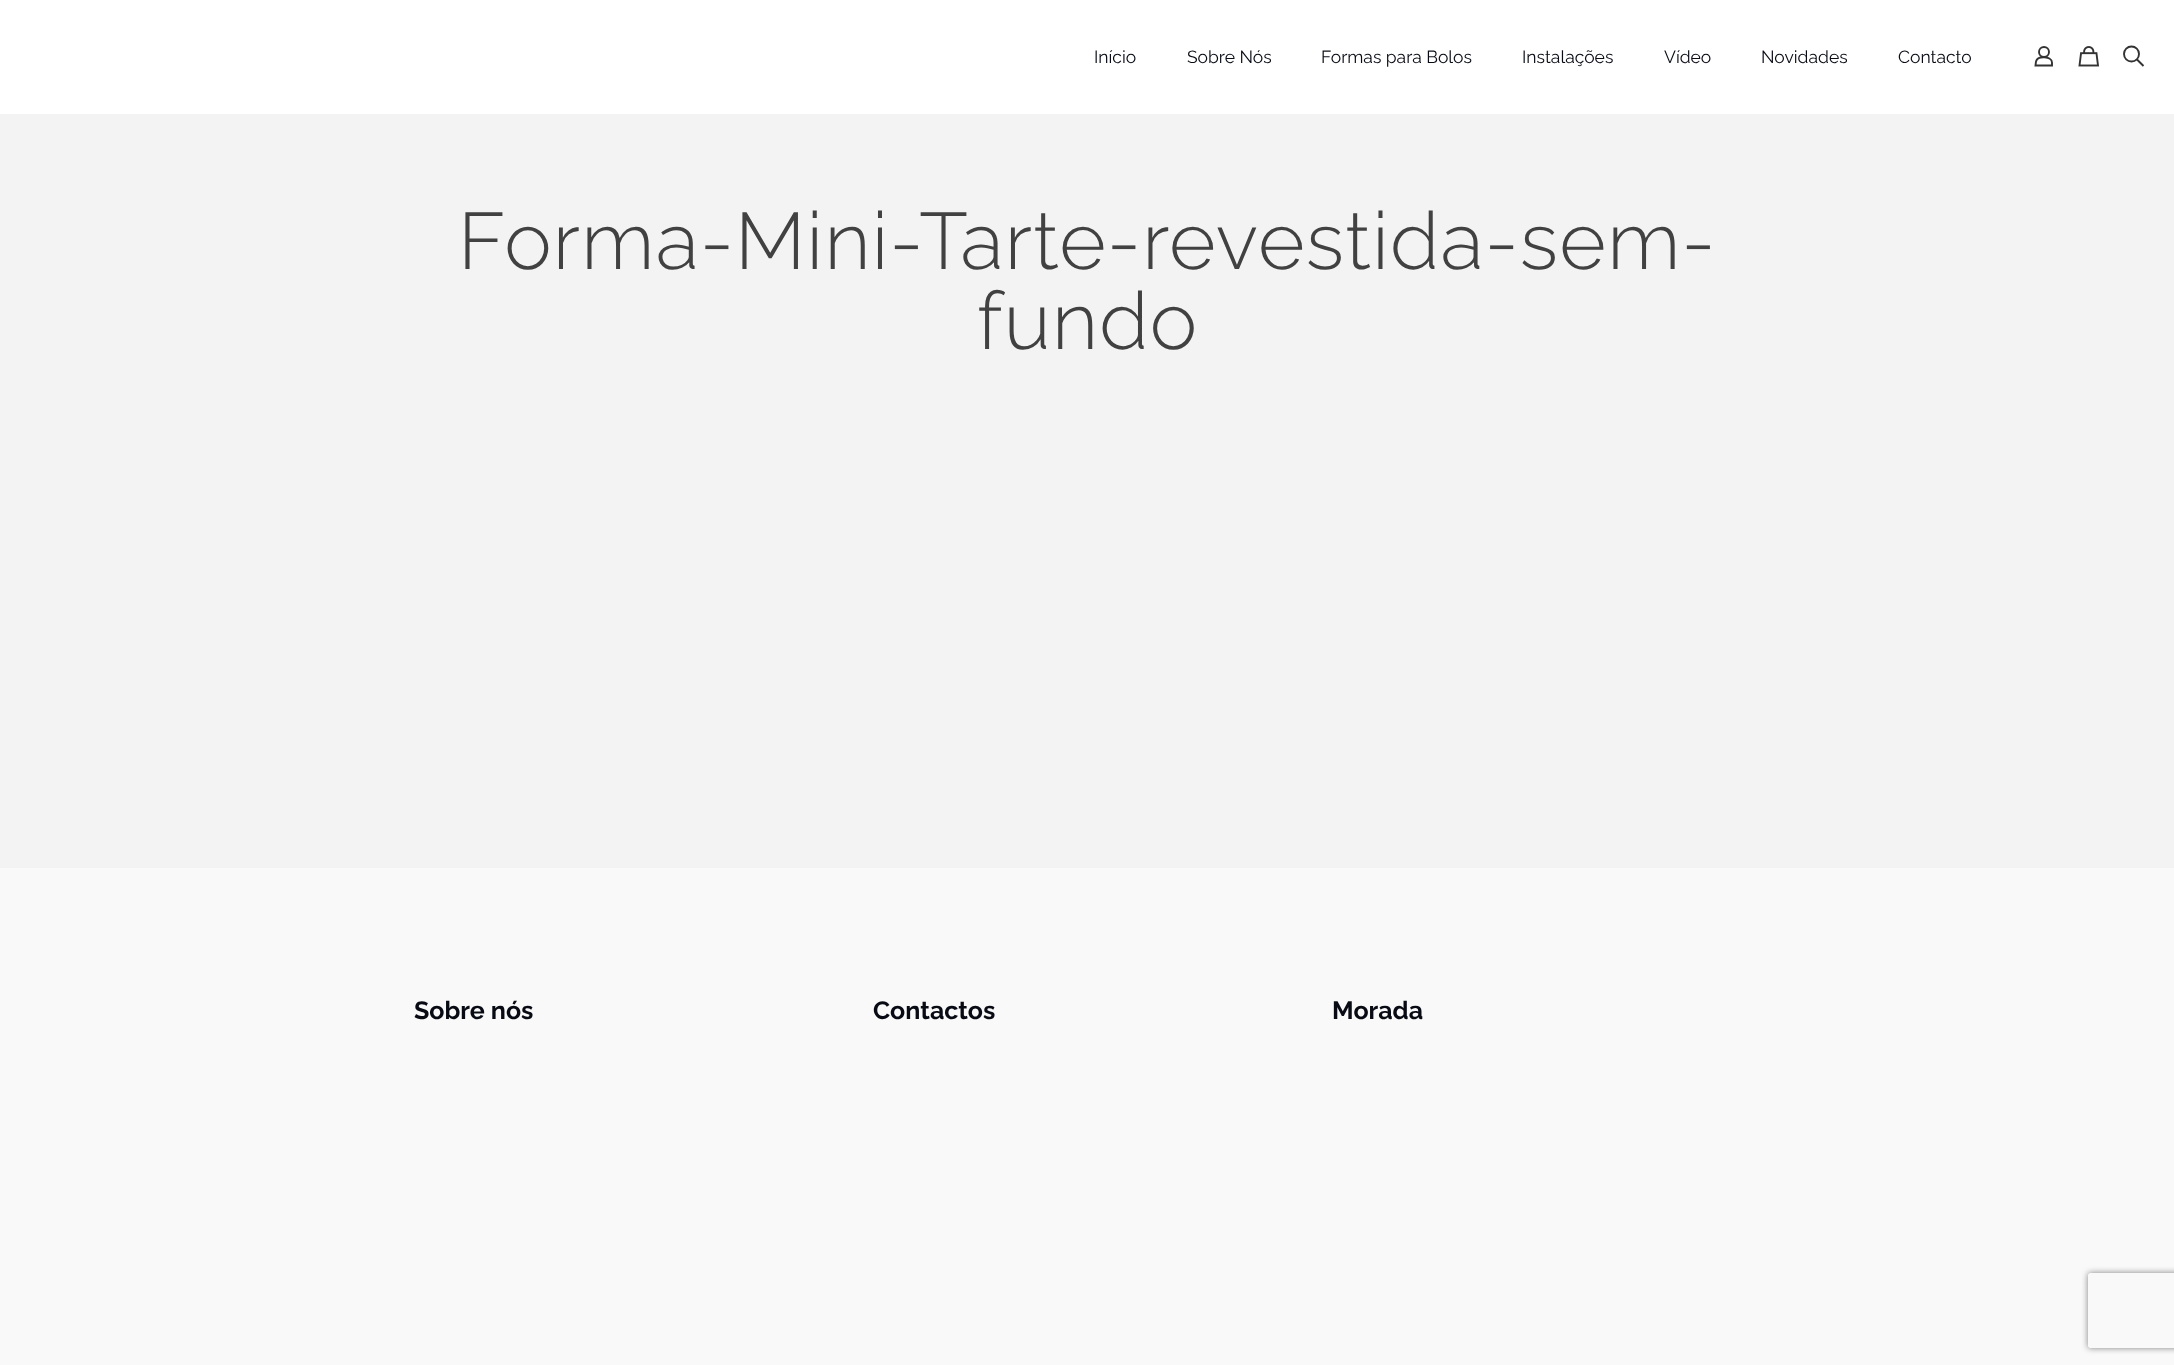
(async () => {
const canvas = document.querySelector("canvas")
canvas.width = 2174
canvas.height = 1365
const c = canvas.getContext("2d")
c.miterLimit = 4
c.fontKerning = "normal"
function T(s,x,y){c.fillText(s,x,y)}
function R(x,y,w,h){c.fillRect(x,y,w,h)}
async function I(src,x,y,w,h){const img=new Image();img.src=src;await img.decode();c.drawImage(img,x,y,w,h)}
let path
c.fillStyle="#f3f3f3"
R(0,0,2174,1365)
c.fillStyle="#fff"
R(0,0,2174,114)
c.font="17.5px Raleway"
c.fillStyle="#080b14"
T("Início",1094,63)
T("Sobre Nós",1187,63)
T("Formas para Bolos",1321,63)
T("Instalações",1522,63)
T("Vídeo",1664,63)
T("Novidades",1761,63)
T("Contacto",1898,63)
c.beginPath()
c.arc(2044,52,5,0,7)
c.strokeStyle="#333"
c.lineWidth=1.9
c.stroke()
path = new Path2D("M2052 62.5v3h-16.5l.5-4c1.5-6 16-5.5 16 1z")
c.stroke(path)
await I("1.png",2078,46,22,21)
c.beginPath()
c.arc(2131.5,54,7.5,0,7)
c.stroke()
path = new Path2D("M2137 59.5l6.5 6.5")
c.stroke(path)
c.letterSpacing="1.25px"
c.font="300 80px Raleway"
c.fillStyle="#414141"
T("Forma-Mini-Tarte-revestida-sem-",458,269)
T("fundo",977,349)
c.fillStyle="#f9f9f9"
R(0,868,2174,497)
c.letterSpacing="0px"
c.font="bold 25px Raleway"
c.fillStyle="#080b14"
T("Sobre nós",414,1019)
T("Contactos",873,1019)
T("Morada",1332,1019)
c.save()
path = new Path2D("M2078 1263h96v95h-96zm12.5 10h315c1.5 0 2.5 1 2.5 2.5v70c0 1.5-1 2.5-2.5 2.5h-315c-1.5 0-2.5-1-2.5-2.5v-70c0-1.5 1-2.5 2.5-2.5z")
c.clip(path,"evenodd")
c.fillStyle="#808080"
c.filter="blur(3px)"
c.beginPath()
c.roundRect(2088,1273,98,75,2.5)
c.fill()
c.filter="none"
c.restore()
})()
